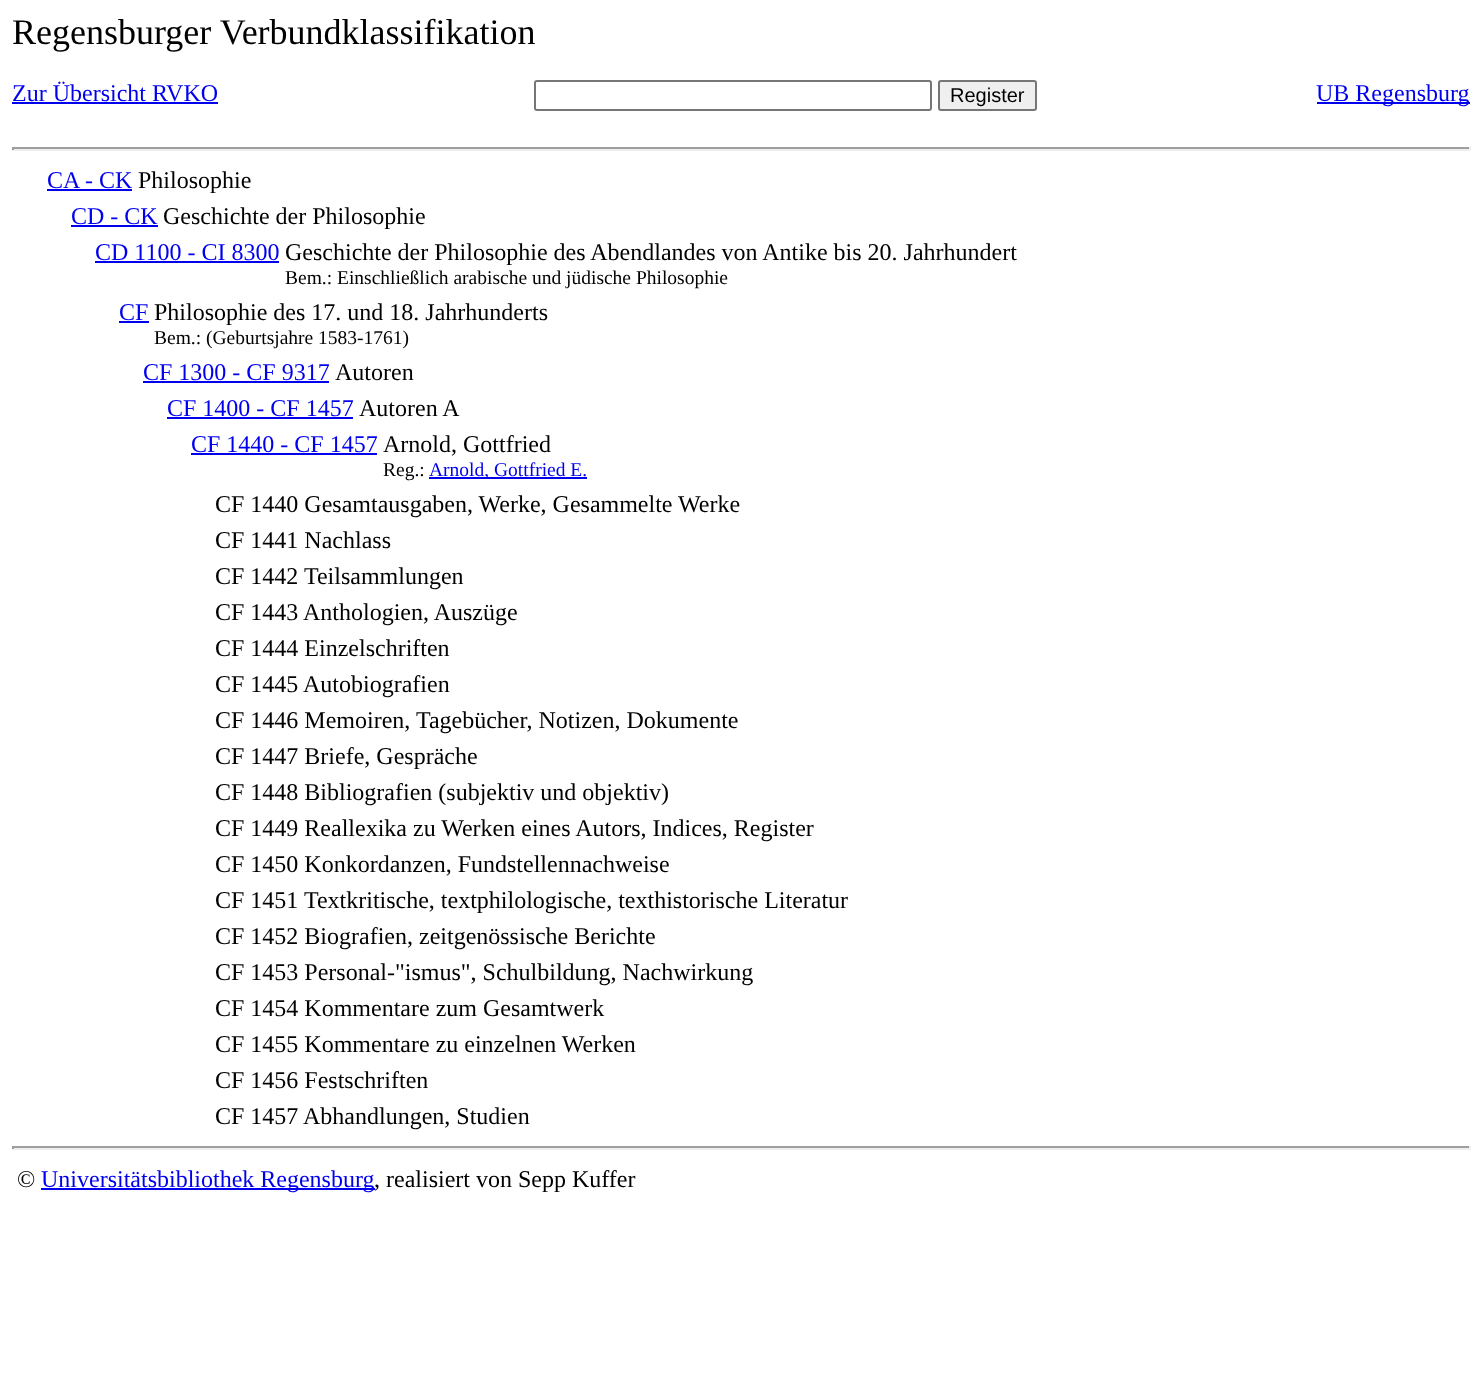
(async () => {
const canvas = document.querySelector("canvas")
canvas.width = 1481
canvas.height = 1392
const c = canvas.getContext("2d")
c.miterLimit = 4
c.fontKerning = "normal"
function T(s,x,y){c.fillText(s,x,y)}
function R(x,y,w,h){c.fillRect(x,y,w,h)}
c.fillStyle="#fff"
R(0,0,1481,1392)
c.font="36px Liberation Serif"
c.fillStyle="#000"
T("Regensburger Verbundklassifikation",12,44)
c.font="24px Liberation Serif"
c.fillStyle="#00e"
T("Zur Übersicht RVKO",12,101)
R(12,102,206,2)
c.beginPath()
c.roundRect(535,81,396,29,2)
c.strokeStyle="#767676"
c.lineWidth=2
c.stroke()
c.fillStyle="#efefef"
c.beginPath()
c.roundRect(939,81,97,29,2)
c.fill()
c.stroke()
c.font="20px Liberation Sans"
c.fillStyle="#000"
T("Register",950,102)
c.fillStyle="#00e"
R(1317,102,153,2)
c.font="24px Liberation Serif"
T("UB Regensburg",1316,101)
c.fillStyle="#9f9f9f"
R(12,147,1458,2)
c.fillStyle="#eee"
R(1469,147,2,3)
R(12,149,1458,2)
c.fillStyle="#9f9f9f"
R(12,147,2,3)
c.fillStyle="#00e"
T("CA - CK",47,188)
R(47,189,85,2)
c.fillStyle="#000"
T("Philosophie",138,188)
c.fillStyle="#00e"
T("CD - CK",71,224)
R(71,225,87,2)
c.fillStyle="#000"
T("Geschichte der Philosophie",163,224)
c.fillStyle="#00e"
T("CD 1100 - CI 8300",95,260)
R(95,261,184,2)
c.fillStyle="#000"
T("Geschichte der Philosophie des Abendlandes von Antike bis 20. Jahrhundert",285,260)
c.font="19.5px Liberation Serif"
T("Bem.: Einschließlich arabische und jüdische Philosophie",285,284)
c.font="24px Liberation Serif"
c.fillStyle="#00e"
T("CF",119,320)
R(119,321,30,2)
c.fillStyle="#000"
T("Philosophie des 17. und 18. Jahrhunderts",154,320)
c.font="19.5px Liberation Serif"
T("Bem.: (Geburtsjahre 1583-1761)",154,344)
c.font="24px Liberation Serif"
c.fillStyle="#00e"
T("CF 1300 - CF 9317",143,380)
R(143,381,186,2)
c.fillStyle="#000"
T("Autoren",335,380)
c.fillStyle="#00e"
T("CF 1400 - CF 1457",167,416)
R(167,417,186,2)
c.fillStyle="#000"
T("Autoren A",359,416)
c.fillStyle="#00e"
T("CF 1440 - CF 1457",191,452)
R(191,453,186,2)
c.fillStyle="#000"
T("Arnold, Gottfried",383,452)
c.font="19.5px Liberation Serif"
T("Reg.:",383,476)
c.fillStyle="#00e"
R(429,477,158,2)
T("Arnold, Gottfried E.",429,476)
c.font="24px Liberation Serif"
c.fillStyle="#000"
T("CF 1440 Gesamtausgaben, Werke, Gesammelte Werke",215,512)
T("CF 1441 Nachlass",215,548)
T("CF 1442 Teilsammlungen",215,584)
T("CF 1443 Anthologien, Auszüge",215,620)
T("CF 1444 Einzelschriften",215,656)
T("CF 1445 Autobiografien",215,692)
T("CF 1446 Memoiren, Tagebücher, Notizen, Dokumente",215,728)
T("CF 1447 Briefe, Gespräche",215,764)
T("CF 1448 Bibliografien (subjektiv und objektiv)",215,800)
T("CF 1449 Reallexika zu Werken eines Autors, Indices, Register",215,836)
T("CF 1450 Konkordanzen, Fundstellennachweise",215,872)
T("CF 1451 Textkritische, textphilologische, texthistorische Literatur",215,908)
T("CF 1452 Biografien, zeitgenössische Berichte",215,944)
T("CF 1453 Personal-\"ismus\", Schulbildung, Nachwirkung",215,980)
T("CF 1454 Kommentare zum Gesamtwerk",215,1016)
T("CF 1455 Kommentare zu einzelnen Werken",215,1052)
T("CF 1456 Festschriften",215,1088)
T("CF 1457 Abhandlungen, Studien",215,1124)
c.fillStyle="#9f9f9f"
R(12,1146,1458,2)
c.fillStyle="#eee"
R(1469,1146,2,3)
R(12,1148,1458,2)
c.fillStyle="#9f9f9f"
R(12,1146,2,3)
c.fillStyle="#000"
T("©",17,1187)
c.fillStyle="#00e"
R(41,1188,334,2)
T("Universitätsbibliothek Regensburg",41,1187)
c.fillStyle="#000"
T(", realisiert von Sepp Kuffer",374,1187)
})()
